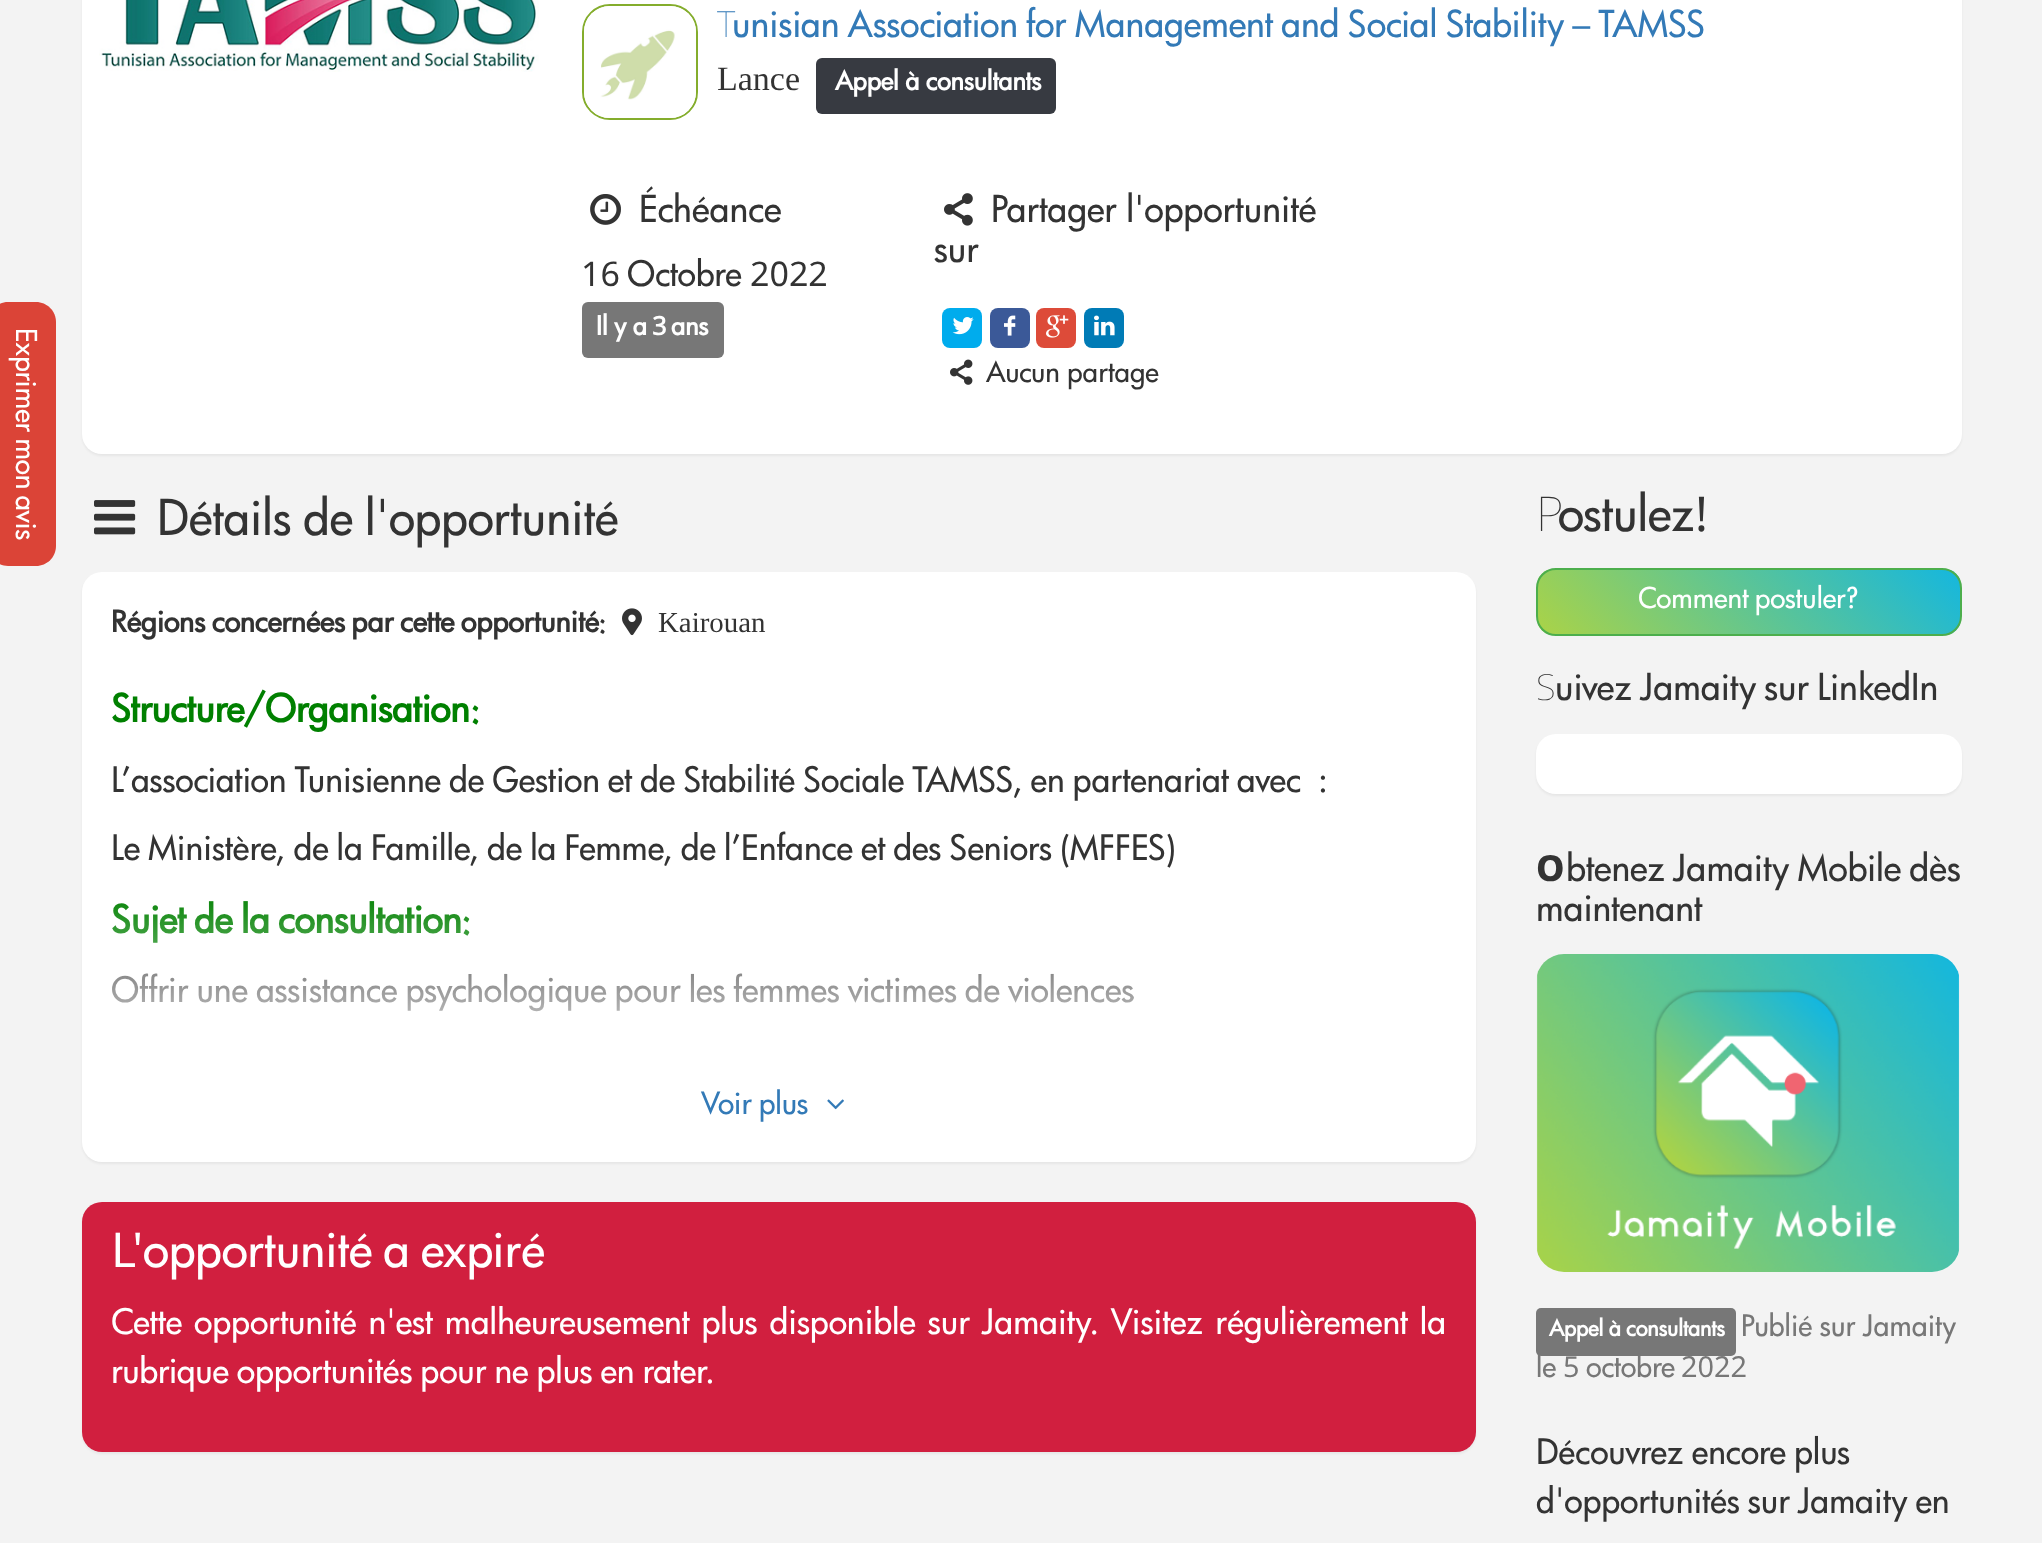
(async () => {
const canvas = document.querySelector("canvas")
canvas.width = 2042
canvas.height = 1543
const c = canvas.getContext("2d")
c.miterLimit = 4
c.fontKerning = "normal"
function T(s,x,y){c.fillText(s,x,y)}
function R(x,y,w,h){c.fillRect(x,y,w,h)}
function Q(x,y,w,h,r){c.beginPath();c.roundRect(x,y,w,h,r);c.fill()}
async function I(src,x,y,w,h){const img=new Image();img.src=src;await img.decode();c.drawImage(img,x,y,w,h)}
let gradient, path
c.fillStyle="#f3f3f3"
R(0,0,2042,1543)
c.fillStyle="#db4437"
path = new Path2D("M56 322v224c0 11-9 20-20 20h-28c-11 0-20-9-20-20v-224c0-11 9-20 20-20h28c11 0 20 9 20 20z")
c.fill(path)
c.wordSpacing="-2px"
c.font="28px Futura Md"
c.fillStyle="#fff"
c.save()
c.translate(16,328)
c.rotate(90 * Math.PI / 180)
c.fillText("Exprimer mon avis",0,0)
c.restore()
c.fillStyle="#0000000d"
c.filter="blur(1px)"
c.beginPath()
c.roundRect(82,-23,1880,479,20)
c.fill()
c.filter="none"
c.fillStyle="#fff"
Q(82,-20,1880,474,20)
await I("1.png",99,0,440,72)
c.beginPath()
c.roundRect(583,5,114,114,27)
c.strokeStyle="#84ad2c"
c.lineWidth=2
c.stroke()
await I("2.png",584,6,112,112)
c.wordSpacing="0px"
c.font="100 36px Noto Sans"
c.fillStyle="#337ab7"
T("T",717,37)
c.wordSpacing="-2.5px"
c.font="36px Futura Md"
T("unisian Association for Management and Social Stability – TAMSS",732,37)
c.wordSpacing="0px"
c.font="34px Liberation Serif"
c.fillStyle="#333"
T("Lance",717,90)
c.fillStyle="#373a41"
Q(816,58,240,56,6)
c.wordSpacing="-1px"
c.font="bold 25.5px Futura Md"
c.fillStyle="#fff"
T("Appel à consultants",835,90)
await I("3.png",590,194,31,31)
c.wordSpacing="0px"
c.font="36px Futura Md"
c.fillStyle="#333"
T("Échéance",639,222)
c.font="34px Noto Naskh Arabic"
T("16",581,286)
c.font="34px Futura Md"
T("Octobre",627,286)
c.font="34px Noto Naskh Arabic"
T("2022",750,286)
c.fillStyle="#777"
Q(582,302,142,56,6)
c.wordSpacing="-1px"
c.font="bold 25.5px Futura Md"
c.fillStyle="#fff"
T("Il y a",596,335)
c.wordSpacing="0px"
c.font="bold 25.5px Noto Naskh Arabic"
T("3",652,335)
c.font="bold 25.5px Futura Md"
T("ans",671,335)
await I("4.png",944,193,29,33)
c.wordSpacing="-1px"
c.font="36px Futura Md"
c.fillStyle="#333"
T("Partager l'opportunité",991,222)
c.wordSpacing="0px"
T("sur",934,262)
c.fillStyle="#00aced"
Q(942,308,40,40,8)
await I("5.png",952,317,22,18)
c.fillStyle="#3b5998"
Q(990,308,40,40,8)
await I("6.png",1004,315,12,21)
c.fillStyle="#dd4b39"
Q(1036,308,40,40,8)
await I("7.png",1046,315,23,23)
c.fillStyle="#007bb6"
Q(1084,308,40,40,8)
await I("8.png",1094,315,21,21)
await I("9.png",950,359,23,26)
c.wordSpacing="-1px"
c.font="28px Futura Md"
c.fillStyle="#333"
T("Aucun partage",986,382)
await I("10.png",94,500,42,35)
c.wordSpacing="-2px"
c.font="48px Futura Md"
T("Détails de l'opportunité",157,535)
c.fillStyle="#0000000d"
c.filter="blur(1px)"
c.beginPath()
c.roundRect(82,574,1394,590,20)
c.fill()
c.filter="none"
c.fillStyle="#fff"
Q(82,572,1394,590,20)
c.font="bold 28.9px Futura Md"
c.fillStyle="#333"
T("Régions concernées par cette opportunité",111,632)
c.wordSpacing="0px"
c.font="bold 28.9px Noto Naskh Arabic"
T(":",599,632)
await I("11.png",622,608,20,28)
c.font="28.9px Liberation Serif"
T("Kairouan",658,632)
c.font="bold 37.25px Futura Md"
c.fillStyle="#008000"
T("Structure/Organisation",111,722)
c.font="bold 37.25px Noto Naskh Arabic"
T(":",471,722)
c.wordSpacing="-2px"
c.font="34px Futura Md"
c.fillStyle="#333"
T("L’association Tunisienne de Gestion et de Stabilité Sociale TAMSS, en partenariat avec",111,792)
T(":",1318,792)
T("Le Ministère, de la Famille, de la Femme, de l’Enfance et des Seniors (MFFES)",111,860)
c.wordSpacing="-2.5px"
c.font="bold 37.25px Futura Md"
c.fillStyle="#008000"
T("Sujet de la consultation",111,933)
c.wordSpacing="0px"
c.font="bold 37.25px Noto Naskh Arabic"
T(":",462,933)
c.wordSpacing="-2px"
c.font="34px Futura Md"
c.fillStyle="#333"
T("Offrir une assistance psychologique pour les femmes victimes de violences",111,1002)
gradient = c.createLinearGradient(779,888,779,1088)
gradient.addColorStop(0,"#ffffff00")
gradient.addColorStop(1,"#fff")
c.fillStyle = gradient
R(112,902,1021,110)
c.font="30px Futura Md"
c.fillStyle="#337ab7"
T("Voir plus",701,1114)
await I("12.png",827,1099,17,11)
c.fillStyle="#0000000d"
c.filter="blur(1px)"
c.beginPath()
c.roundRect(82,1204,1394,250,20)
c.fill()
c.filter="none"
c.fillStyle="#d11f3f"
Q(82,1202,1394,250,20)
c.wordSpacing="0px"
c.font="48px Noto Sans"
c.fillStyle="#fff"
T("L'",111,1267)
c.wordSpacing="-3px"
c.font="48px Futura Md"
T("opportunité a expiré",143,1267)
c.wordSpacing="2px"
c.font="34px Futura Md"
T("Cette opportunité n'est malheureusement plus disponible sur Jamaity. Visitez régulièrement la",111,1334)
c.wordSpacing="-2px"
T("rubrique opportunités pour ne plus en rater.",111,1383)
c.wordSpacing="0px"
c.font="100 48px Noto Sans"
c.fillStyle="#333"
T("P",1536,531)
c.font="48px Futura Md"
T("ostulez",1558,531)
c.font="48px Noto Naskh Arabic"
T("!",1695,531)
c.save()
c.beginPath()
c.roundRect(1536,568,426,68,20)
c.clip()
gradient = c.createLinearGradient(1628,724,1871,481)
gradient.addColorStop(0,"#aad347")
gradient.addColorStop(1,"#15b7de")
c.fillStyle = gradient
R(1538,570,422,64)
c.restore()
c.beginPath()
c.roundRect(1537,569,424,66,19)
c.strokeStyle="#4cae4c"
c.stroke()
c.wordSpacing="-2px"
c.font="28px Futura Md"
c.fillStyle="#fff"
T("Comment postuler?",1638,608)
c.wordSpacing="0px"
c.font="100 36px Noto Sans"
c.fillStyle="#333"
T("S",1536,700)
c.wordSpacing="-2.5px"
c.font="36px Futura Md"
T("uivez Jamaity sur LinkedIn",1555,700)
c.fillStyle="#0000000d"
c.filter="blur(1px)"
c.beginPath()
c.roundRect(1536,736,426,60,20)
c.fill()
c.filter="none"
c.fillStyle="#fff"
Q(1536,734,426,60,20)
c.wordSpacing="0px"
c.font="800 36px Noto Sans"
c.fillStyle="#333"
T("O",1536,881)
c.wordSpacing="-2.5px"
c.font="36px Futura Md"
T("btenez Jamaity Mobile dès",1566,881)
c.wordSpacing="0px"
T("maintenant",1536,921)
await I("13.png",1536,954,424,318)
c.fillStyle="#777"
Q(1536,1308,200,48,5)
c.wordSpacing="-1px"
c.font="bold 21.75px Futura Md"
c.fillStyle="#fff"
T("Appel à consultants",1549,1336)
c.font="28.9px Futura Md"
c.fillStyle="#777"
T("Publié sur Jamaity",1741,1336)
c.wordSpacing="0px"
T("le",1536,1377)
c.font="28.9px Noto Naskh Arabic"
T("5",1563,1377)
c.font="28.9px Futura Md"
T("octobre",1586,1377)
c.font="28.9px Noto Naskh Arabic"
T("2022",1681,1377)
c.wordSpacing="-2px"
c.font="34px Futura Md"
c.fillStyle="#333"
T("Découvrez encore plus",1536,1464)
T("d'opportunités sur Jamaity en",1536,1513)
})()
